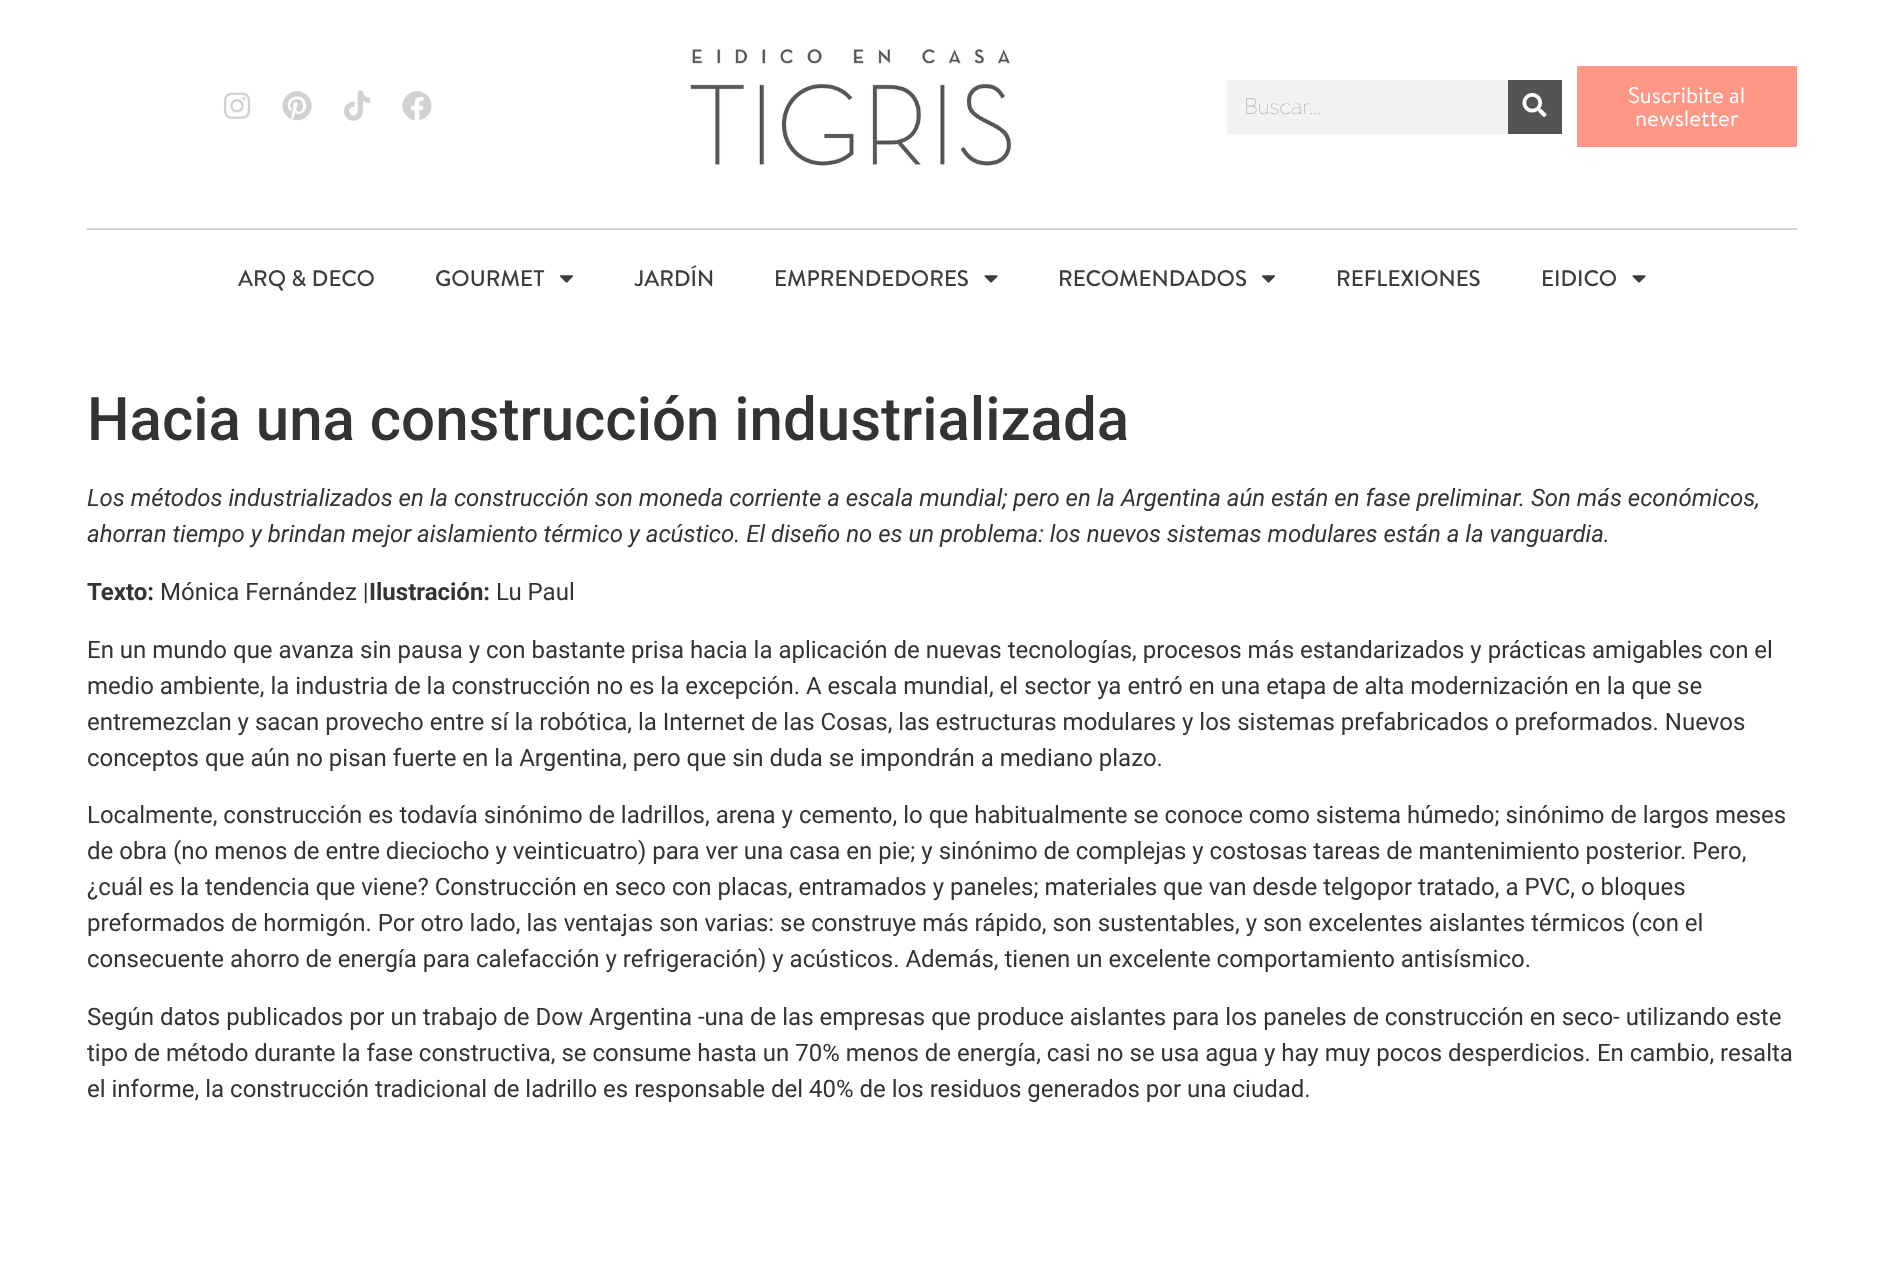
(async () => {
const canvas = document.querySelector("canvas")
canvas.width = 1883
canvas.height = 1267
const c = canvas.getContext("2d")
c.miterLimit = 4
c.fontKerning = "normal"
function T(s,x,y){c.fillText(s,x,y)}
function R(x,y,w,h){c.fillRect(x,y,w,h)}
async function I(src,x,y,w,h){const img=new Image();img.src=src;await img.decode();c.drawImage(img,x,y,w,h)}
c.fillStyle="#fff"
R(0,0,1883,1267)
await I("1.png",223,92,28,27)
await I("2.png",282,91,30,30)
await I("3.png",343,90,28,31)
await I("4.png",402,91,30,29)
await I("5.png",690,49,322,117)
c.fillStyle="#f1f2f3"
R(1227,80,281,54)
c.font="100 22.5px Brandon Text"
c.fillStyle="#939394"
T("Buscar...",1244,114)
c.fillStyle="#545454"
R(1508,80,54,54)
await I("6.png",1522,93,25,24)
c.fillStyle="#fe9786"
R(1577,66,220,81)
c.font="22.5px Brandon Text"
c.fillStyle="#fff"
T("Suscribite al",1628,103)
T("newsletter",1635,126)
c.fillStyle="#d1d1d1"
R(87,228,1710,2)
c.font="500 22.5px Brandon Text"
c.fillStyle="#3d3d3d"
T("ARQ & DECO",238,286)
T("GOURMET",435,286)
await I("7.png",560,275,13,8)
T("JARDÍN",634,286)
T("EMPRENDEDORES",774,286)
await I("8.png",984,275,14,8)
T("RECOMENDADOS",1058,286)
await I("7.png",1262,275,13,8)
T("REFLEXIONES",1336,286)
T("EIDICO",1541,286)
await I("8.png",1632,275,14,8)
c.font="500 60px Roboto"
c.fillStyle="#333"
T("Hacia una construcción industrializada",87,440)
c.font="italic 24px Roboto"
T("Los métodos industrializados en la construcción son moneda corriente a escala mundial; pero en la Argentina aún están en fase preliminar. Son más económicos,",87,506)
T("ahorran tiempo y brindan mejor aislamiento térmico y acústico. El diseño no es un problema: los nuevos sistemas modulares están a la vanguardia.",87,542)
c.font="bold 24px Roboto"
T("Texto:",87,600)
c.font="24px Roboto"
T("Mónica Fernández |",160,600)
c.font="bold 24px Roboto"
T("Ilustración:",369,600)
c.font="24px Roboto"
T("Lu Paul",496,600)
T("En un mundo que avanza sin pausa y con bastante prisa hacia la aplicación de nuevas tecnologías, procesos más estandarizados y prácticas amigables con el",87,658)
T("medio ambiente, la industria de la construcción no es la excepción. A escala mundial, el sector ya entró en una etapa de alta modernización en la que se",87,694)
T("entremezclan y sacan provecho entre sí la robótica, la Internet de las Cosas, las estructuras modulares y los sistemas prefabricados o preformados. Nuevos",87,730)
T("conceptos que aún no pisan fuerte en la Argentina, pero que sin duda se impondrán a mediano plazo.",87,766)
T("Localmente, construcción es todavía sinónimo de ladrillos, arena y cemento, lo que habitualmente se conoce como sistema húmedo; sinónimo de largos meses",87,823)
T("de obra (no menos de entre dieciocho y veinticuatro) para ver una casa en pie; y sinónimo de complejas y costosas tareas de mantenimiento posterior. Pero,",87,859)
T("¿cuál es la tendencia que viene? Construcción en seco con placas, entramados y paneles; materiales que van desde telgopor tratado, a PVC, o bloques",87,895)
T("preformados de hormigón. Por otro lado, las ventajas son varias: se construye más rápido, son sustentables, y son excelentes aislantes térmicos (con el",87,931)
T("consecuente ahorro de energía para calefacción y refrigeración) y acústicos. Además, tienen un excelente comportamiento antisísmico.",87,967)
T("Según datos publicados por un trabajo de Dow Argentina -una de las empresas que produce aislantes para los paneles de construcción en seco- utilizando este",87,1025)
T("tipo de método durante la fase constructiva, se consume hasta un 70% menos de energía, casi no se usa agua y hay muy pocos desperdicios. En cambio, resalta",87,1061)
T("el informe, la construcción tradicional de ladrillo es responsable del 40% de los residuos generados por una ciudad.",87,1097)
})()
